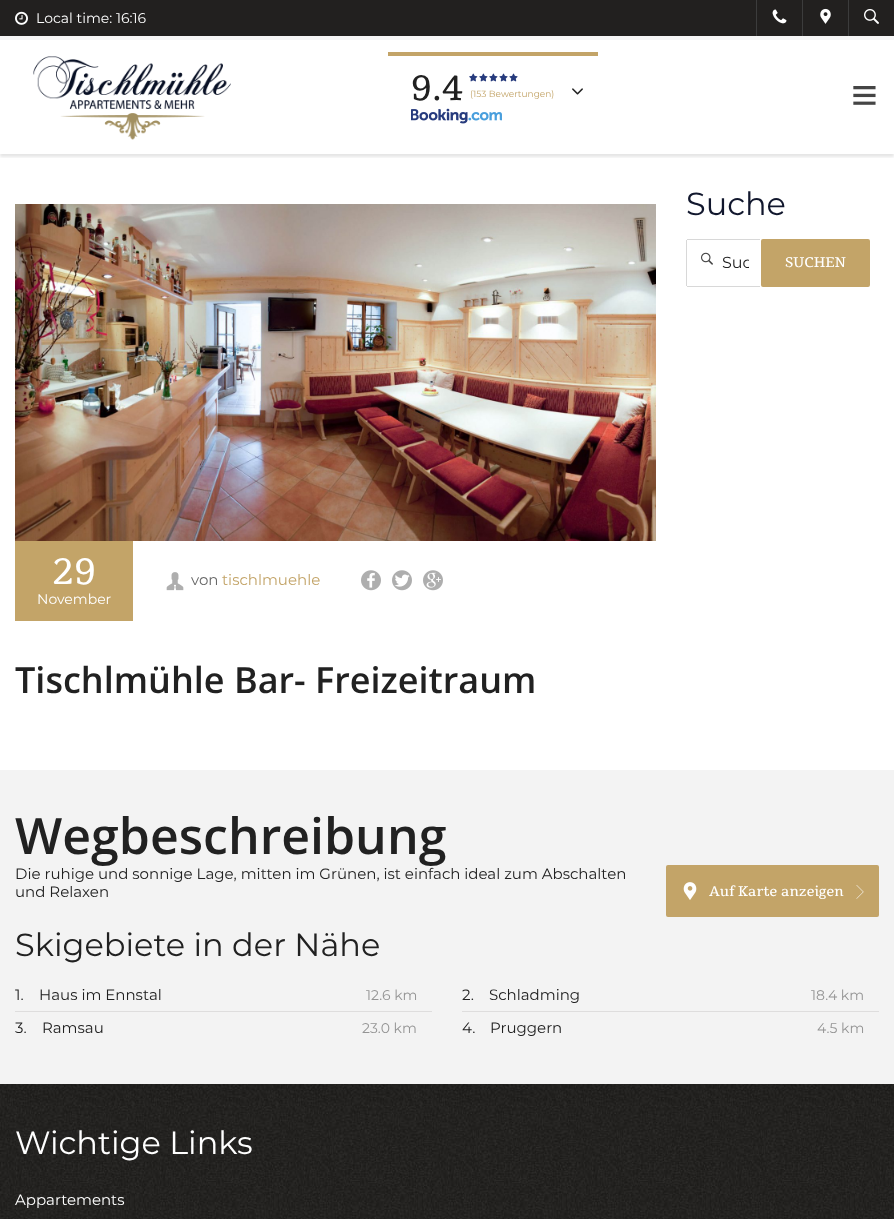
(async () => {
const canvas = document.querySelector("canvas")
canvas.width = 894
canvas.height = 1219
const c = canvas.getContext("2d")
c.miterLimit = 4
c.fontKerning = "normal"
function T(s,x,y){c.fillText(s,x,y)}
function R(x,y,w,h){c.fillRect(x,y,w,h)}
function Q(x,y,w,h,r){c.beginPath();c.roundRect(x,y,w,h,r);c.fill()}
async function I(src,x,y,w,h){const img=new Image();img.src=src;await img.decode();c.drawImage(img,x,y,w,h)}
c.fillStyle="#fff"
R(0,0,894,1219)
c.save()
c.beginPath()
c.rect(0,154,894,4)
c.clip()
c.fillStyle="#0000001a"
c.filter="blur(1.5px)"
c.beginPath()
c.rect(0,3,894,154)
c.fill()
c.filter="none"
c.restore()
c.fillStyle="#22201f"
R(0,0,894,36)
c.fillStyle="#f6f6f6"
R(0,36,894,4)
await I("1.png",15,11,13,14)
c.font="100 14px Montserrat"
c.fillStyle="#fff"
T("Local time: 16:16",36,23)
c.fillStyle="#3c3c3c"
R(756,0,1,36)
await I("2.png",772,9,15,15)
R(802,0,1,36)
await I("3.png",820,8,11,16)
R(848,0,1,36)
await I("4.png",864,9,15,15)
await I("5.png",33,56,198,84)
c.fillStyle="#c3a468"
R(388,52,210,4)
c.font="50px Suravaram"
c.fillStyle="#212121"
T("9.4",411,100)
await I("6.png",469,73,49,9)
c.font="100 9px Montserrat"
c.fillStyle="#c3a468"
T("(153 Bewertungen)",470,97)
await I("7.png",411,108,91,16)
await I("8.png",572,88,11,7)
await I("9.png",853,86,23,19)
c.font="100 32px Montserrat"
c.fillStyle="#11172d"
T("Suche",686,215)
await I("10.png",701,252,12,13)
c.fillStyle="#d8d8d8"
R(687,239,73,1)
R(687,286,73,1)
R(686,240,1,46)
c.save()
c.beginPath()
c.rect(722,253,27,19)
c.clip()
c.font="100 16px Montserrat"
c.fillStyle="#212121"
T("Suc",722,268)
c.restore()
c.fillStyle="#c3a468"
Q(761,239,109,48,2)
c.font="20px Suravaram"
c.fillStyle="#fff"
T("SUCHEN",785,267)
await I("11.png",15,204,641,337)
c.fillStyle="#c3a468"
R(15,541,118,80)
c.font="52px Suravaram"
c.fillStyle="#fff"
T("29",52,584)
c.font="100 14px Montserrat"
T("November",37,604)
await I("12.png",166,572,18,19)
c.font="100 15px Montserrat"
c.fillStyle="#686868"
T("von",191,585)
c.fillStyle="#c3a468"
T("tischlmuehle",222,585)
await I("13.png",361,570,20,21)
await I("14.png",392,570,20,21)
await I("15.png",423,570,20,21)
c.font="600 36px Open Sans"
c.fillStyle="#212121"
T("Tischlmühle Bar- Freizeitraum",15,693)
await I("16.png",0,1084,894,135)
c.save()
c.beginPath()
c.rect(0,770,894,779)
c.clip()
c.fillStyle="#0000001a"
c.filter="blur(10px)"
c.beginPath()
c.rect(10,770,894,314)
c.fill()
c.filter="none"
c.restore()
c.fillStyle="#f3f3f3"
R(0,770,894,314)
c.font="600 50px Open Sans"
c.fillStyle="#212121"
T("Wegbeschreibung",15,854)
c.font="100 15px Montserrat"
T("Die ruhige und sonnige Lage, mitten im Grünen, ist einfach ideal zum Abschalten",15,879)
T("und Relaxen",15,897)
c.fillStyle="#c3a468"
Q(666,865,213,52,2)
await I("17.png",683,882,14,18)
c.font="20px Suravaram"
c.fillStyle="#fff"
T("Auf Karte anzeigen",709,896)
await I("18.png",856,885,8,14)
c.font="100 32px Montserrat"
c.fillStyle="#212121"
T("Skigebiete in der Nähe",15,956)
c.fillStyle="#dedddd"
R(15,1011,417,1)
c.font="100 15px Montserrat"
c.fillStyle="#212121"
T("1.",15,1000)
T("Haus im Ennstal",39,1000)
c.font="100 14px Montserrat"
c.fillStyle="#949494"
T("12.6 km",366,1000)
c.fillStyle="#dedddd"
R(462,1011,417,1)
c.font="100 15px Montserrat"
c.fillStyle="#212121"
T("2.",462,1000)
T("Schladming",489,1000)
c.font="100 14px Montserrat"
c.fillStyle="#949494"
T("18.4 km",811,1000)
c.font="100 15px Montserrat"
c.fillStyle="#212121"
T("3.",15,1033)
T("Ramsau",42,1033)
c.font="100 14px Montserrat"
c.fillStyle="#949494"
T("23.0 km",362,1033)
c.font="100 15px Montserrat"
c.fillStyle="#212121"
T("4.",462,1033)
T("Pruggern",490,1033)
c.font="100 14px Montserrat"
c.fillStyle="#949494"
T("4.5 km",817,1033)
c.font="100 32px Montserrat"
c.fillStyle="#fff"
T("Wichtige Links",15,1154)
c.font="100 15px Montserrat"
T("Appartements",15,1205)
})()
